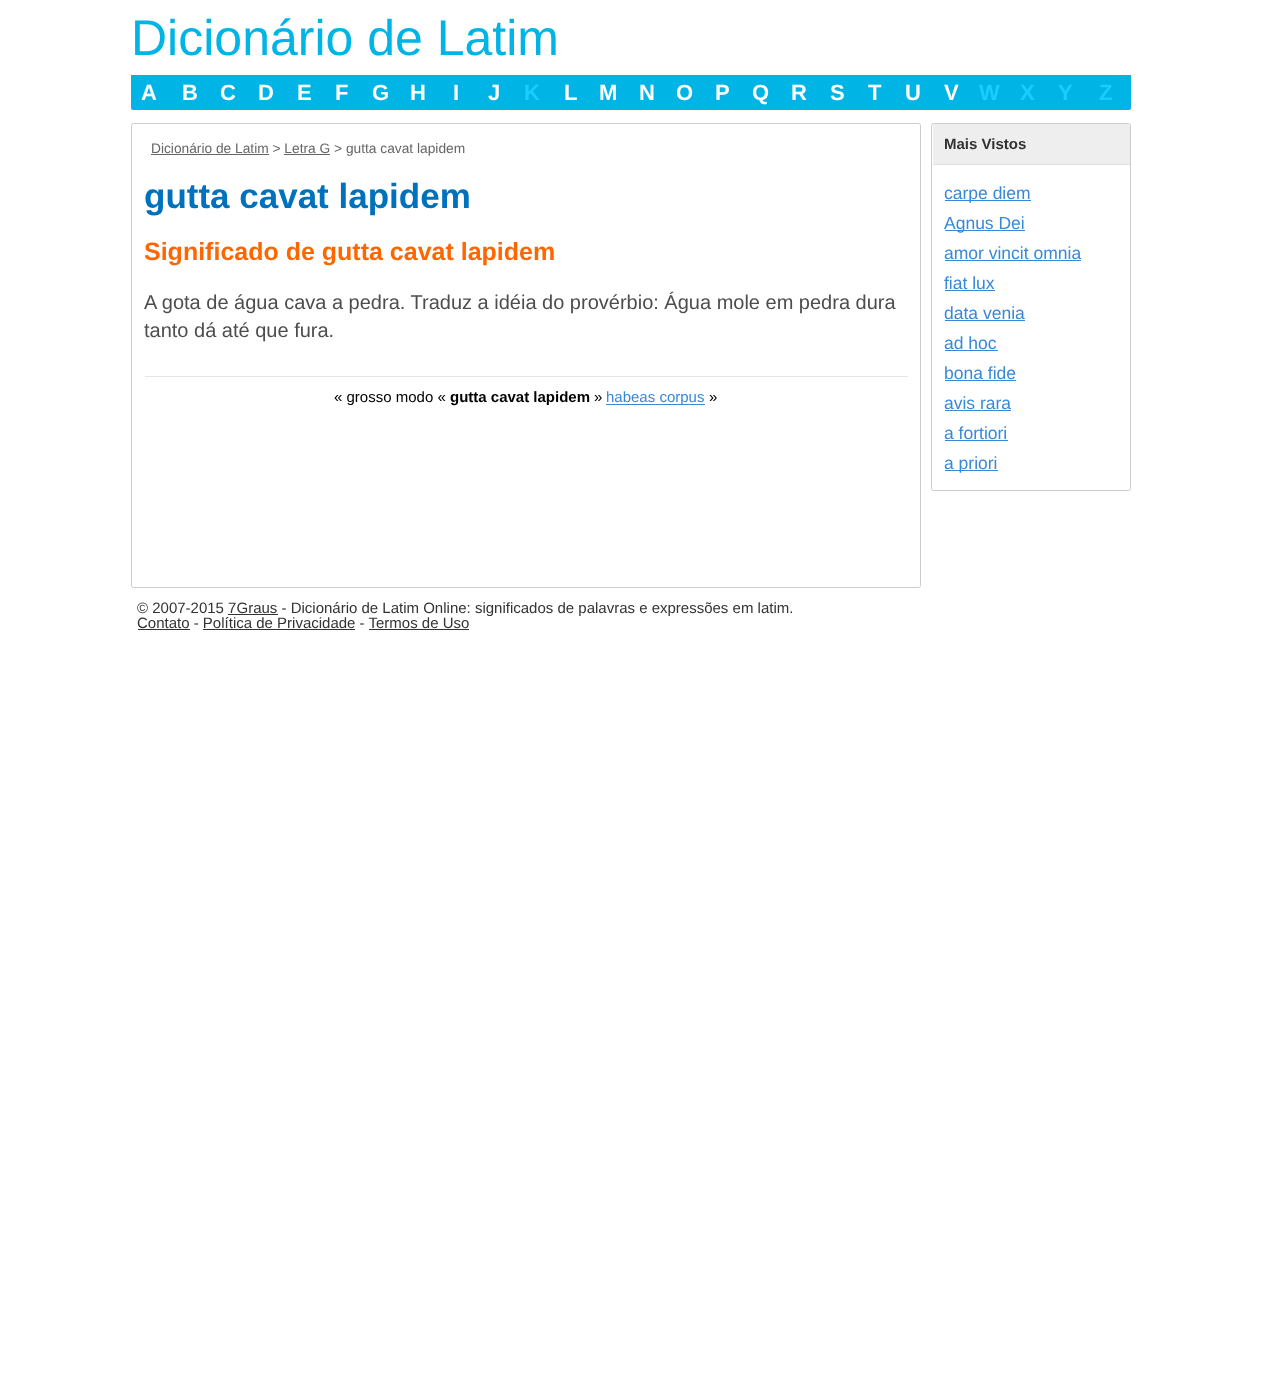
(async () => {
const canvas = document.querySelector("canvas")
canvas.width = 1261
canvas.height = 1397
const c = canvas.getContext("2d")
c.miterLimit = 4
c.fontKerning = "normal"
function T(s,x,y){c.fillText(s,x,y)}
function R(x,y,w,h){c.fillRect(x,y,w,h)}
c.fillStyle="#fff"
R(0,0,1261,1397)
c.font="50px Liberation Sans"
c.fillStyle="#00b4e5"
T("Dicionário de Latim",131,55)
c.beginPath()
c.roundRect(131,75,1000,35,[0,0,2.5,2.5])
c.fill()
c.font="bold 22px Liberation Sans"
c.fillStyle="#fff"
T("A",141,100)
T("B",182,100)
T("C",220,100)
T("D",258,100)
T("E",297,100)
T("F",335,100)
T("G",372,100)
T("H",410,100)
T("I",453,100)
T("J",488,100)
c.fillStyle="#1acdff"
T("K",524,100)
c.fillStyle="#fff"
T("L",564,100)
T("M",599,100)
T("N",639,100)
T("O",676,100)
T("P",715,100)
T("Q",752,100)
T("R",791,100)
T("S",830,100)
T("T",868,100)
T("U",905,100)
T("V",944,100)
c.fillStyle="#1acdff"
T("W",979,100)
T("X",1020,100)
T("Y",1058,100)
T("Z",1099,100)
c.beginPath()
c.roundRect(131.5,123.5,789,464,2)
c.strokeStyle="#ccc"
c.stroke()
c.fillStyle="#666"
R(151,154,118,1)
c.font="13.75px Liberation Sans"
T("Dicionário de Latim > Letra G > gutta cavat lapidem",151,153)
R(284,154,46,1)
c.font="bold 35px Liberation Sans"
c.fillStyle="#0071bc"
T("gutta cavat lapidem",144,208)
c.font="bold 25px Liberation Sans"
c.fillStyle="#f60"
T("Significado de gutta cavat lapidem",144,260)
c.font="20px Liberation Sans"
c.fillStyle="#4d4d4d"
T("A gota de água cava a pedra. Traduz a idéia do provérbio: Água mole em pedra dura",144,309)
T("tanto dá até que fura.",144,337)
c.fillStyle="#e6e6e6"
R(145,376,763,1)
c.font="15px Liberation Sans"
c.fillStyle="#000"
T("« grosso modo «",334,402)
c.font="bold 15px Liberation Sans"
T("gutta cavat lapidem",450,402)
c.font="15px Liberation Sans"
T("»",594,402)
c.fillStyle="#3888d8"
R(606,404,99,1)
T("habeas corpus",606,402)
c.fillStyle="#000"
T("»",709,402)
c.beginPath()
c.roundRect(931.5,123.5,199,367,2)
c.stroke()
c.fillStyle="#eee"
R(933,124,197,40)
c.fillStyle="#e0e0e0"
R(933,164,197,1)
c.font="bold 15px Liberation Sans"
c.fillStyle="#333"
T("Mais Vistos",944,149)
c.fillStyle="#3888d8"
R(945,200,86,1)
c.font="17.5px Liberation Sans"
T("carpe diem",944,199)
R(945,230,80,1)
T("Agnus Dei",944,229)
T("amor vincit omnia",944,259)
R(945,260,136,1)
T("fiat lux",944,289)
R(945,290,50,1)
T("data venia",944,319)
R(945,320,80,1)
T("ad hoc",944,349)
R(945,350,53,1)
T("bona fide",944,379)
R(945,380,71,1)
T("avis rara",944,409)
R(945,410,66,1)
T("a fortiori",944,439)
R(945,440,63,1)
R(945,470,53,1)
T("a priori",944,469)
c.font="15px Liberation Sans"
c.fillStyle="#333"
T("© 2007-2015 7Graus - Dicionário de Latim Online: significados de palavras e expressões em latim.",137,613)
R(228,614,50,1)
T("Contato - Política de Privacidade - Termos de Uso",137,628)
R(138,629,52,1)
R(203,629,152,1)
R(369,629,100,1)
})()
